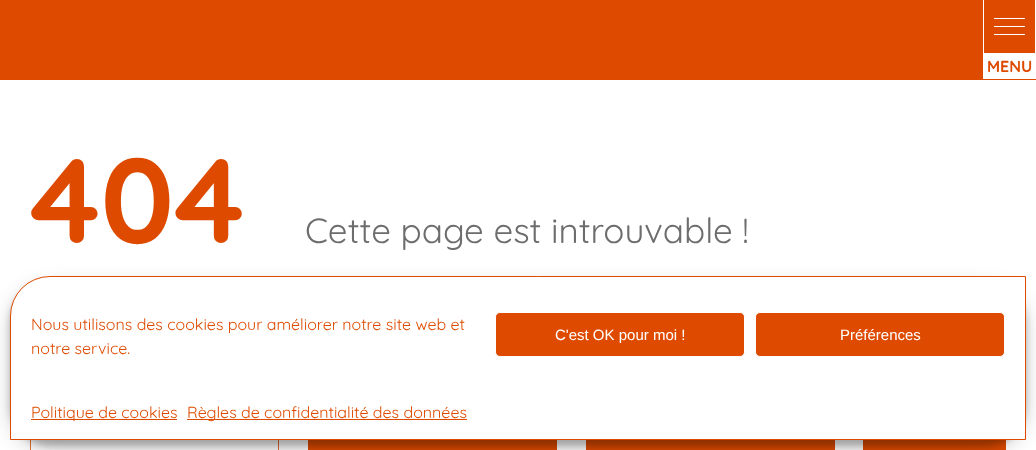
(async () => {
const canvas = document.querySelector("canvas")
canvas.width = 1036
canvas.height = 450
const c = canvas.getContext("2d")
c.miterLimit = 4
c.fontKerning = "normal"
function T(s,x,y){c.fillText(s,x,y)}
function R(x,y,w,h){c.fillRect(x,y,w,h)}
let path
c.fillStyle="#fff"
R(0,0,1036,450)
c.fillStyle="#de4b00"
R(0,0,1036,80)
c.fillStyle="#fff"
R(1035,0,1,53)
R(983,0,1,53)
R(994,26,31,1)
R(994,18,31,1)
R(994,34,31,1)
R(983,53,53,26)
c.font="bold 16px Quicksand"
c.fillStyle="#de4b00"
T("MENU",987,72)
c.font="bold 120px Quicksand"
T("404",30,243)
c.font="35px Quicksand"
c.fillStyle="#6d6d6d"
T("Cette page est introuvable !",305,243)
c.strokeStyle="#e46d30"
c.strokeRect(30.5,397.5,248,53)
c.strokeStyle="#de4b00"
c.strokeRect(308.5,397.5,248,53)
c.fillStyle="#de4b00"
R(309,440,247,10)
c.strokeRect(586.5,397.5,248,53)
R(587,440,247,10)
c.save()
c.beginPath()
c.rect(30,392,976,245)
c.clip()
path = new Path2D("M876 397.5h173.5v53.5c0 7-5.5 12.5-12.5 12.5h-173.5v-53.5c0-7 5.5-12.5 12.5-12.5z")
c.stroke(path)
c.restore()
R(864,440,142,10)
c.fillStyle="#0000003b"
c.filter="blur(3px)"
c.beginPath()
c.roundRect(10,282,1016,164,40)
c.fill()
c.filter="none"
c.fillStyle="#00000030"
c.filter="blur(10px)"
c.beginPath()
c.roundRect(10,286,1016,164,40)
c.fill()
c.filter="none"
c.fillStyle="#fff"
c.beginPath()
c.roundRect(10.5,276.5,1015,163,[39.5,0,0,0])
c.fill()
c.stroke()
c.font="16px Quicksand"
c.fillStyle="#de4b00"
T("Nous utilisons des cookies pour améliorer notre site web et",31,330)
T("notre service.",31,354)
c.beginPath()
c.roundRect(495.5,312.5,249,44,4.5)
c.fill()
c.strokeStyle="#fff"
c.stroke()
c.font="15px Liberation Sans"
c.fillStyle="#fff"
T("C'est OK pour moi !",555,340)
c.fillStyle="#de4b00"
c.beginPath()
c.roundRect(755.5,312.5,249,44,4.5)
c.fill()
c.stroke()
c.fillStyle="#fff"
T("Préférences",840,340)
c.fillStyle="#de4b00"
R(31,419,146,1)
c.font="16px Quicksand"
T("Politique de cookies",31,418)
R(187,419,280,1)
T("Règles de confidentialité des données",187,418)
})()
